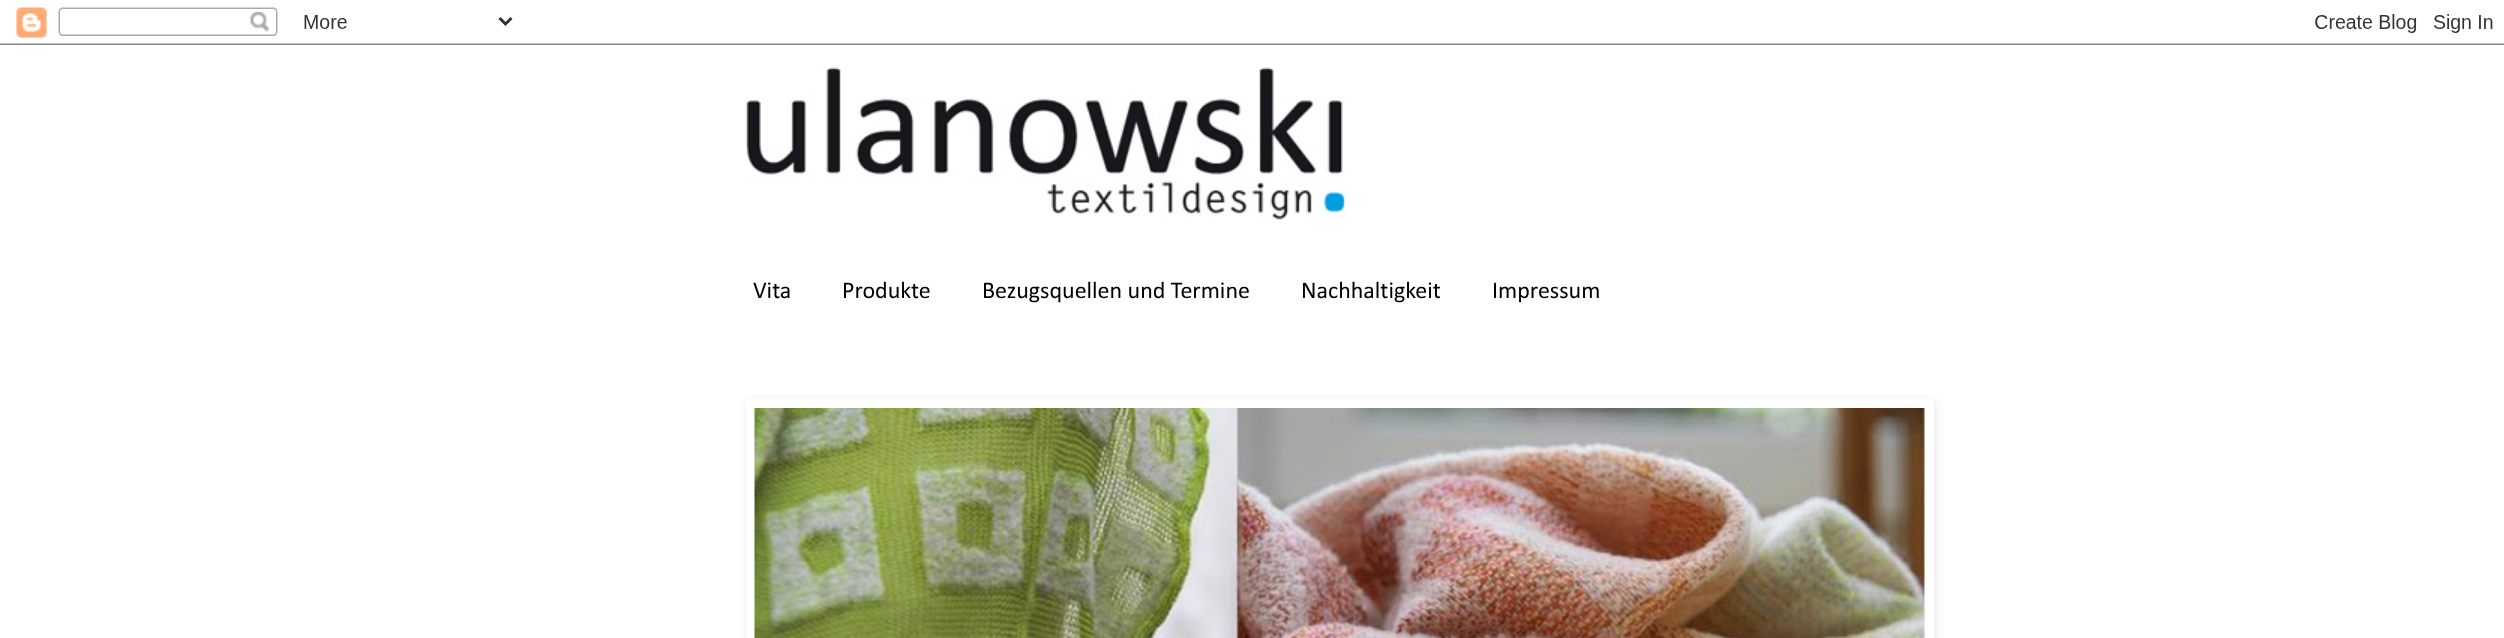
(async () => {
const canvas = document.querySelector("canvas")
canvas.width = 2504
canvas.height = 638
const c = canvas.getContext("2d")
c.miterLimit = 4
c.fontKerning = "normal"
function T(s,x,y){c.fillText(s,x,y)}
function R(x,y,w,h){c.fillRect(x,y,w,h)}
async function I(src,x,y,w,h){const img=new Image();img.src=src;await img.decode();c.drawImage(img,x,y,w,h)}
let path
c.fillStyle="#fff"
R(0,0,2504,638)
await I("1.png",0,7,2504,38)
await I("2.png",745,67,605,153)
c.font="24px Calibri"
c.fillStyle="#000"
T("Vita",753,298)
T("Produkte",842,298)
T("Bezugsquellen und Termine",982,298)
T("Nachhaltigkeit",1301,298)
T("Impressum",1492,298)
c.save()
path = new Path2D("M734 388h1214v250h-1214zm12 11h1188v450h-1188z")
c.clip(path,"evenodd")
c.fillStyle="#0000001a"
c.filter="blur(4px)"
c.beginPath()
c.rect(747,401,1188,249)
c.fill()
c.filter="none"
c.restore()
await I("3.png",754,408,1171,230)
})()
